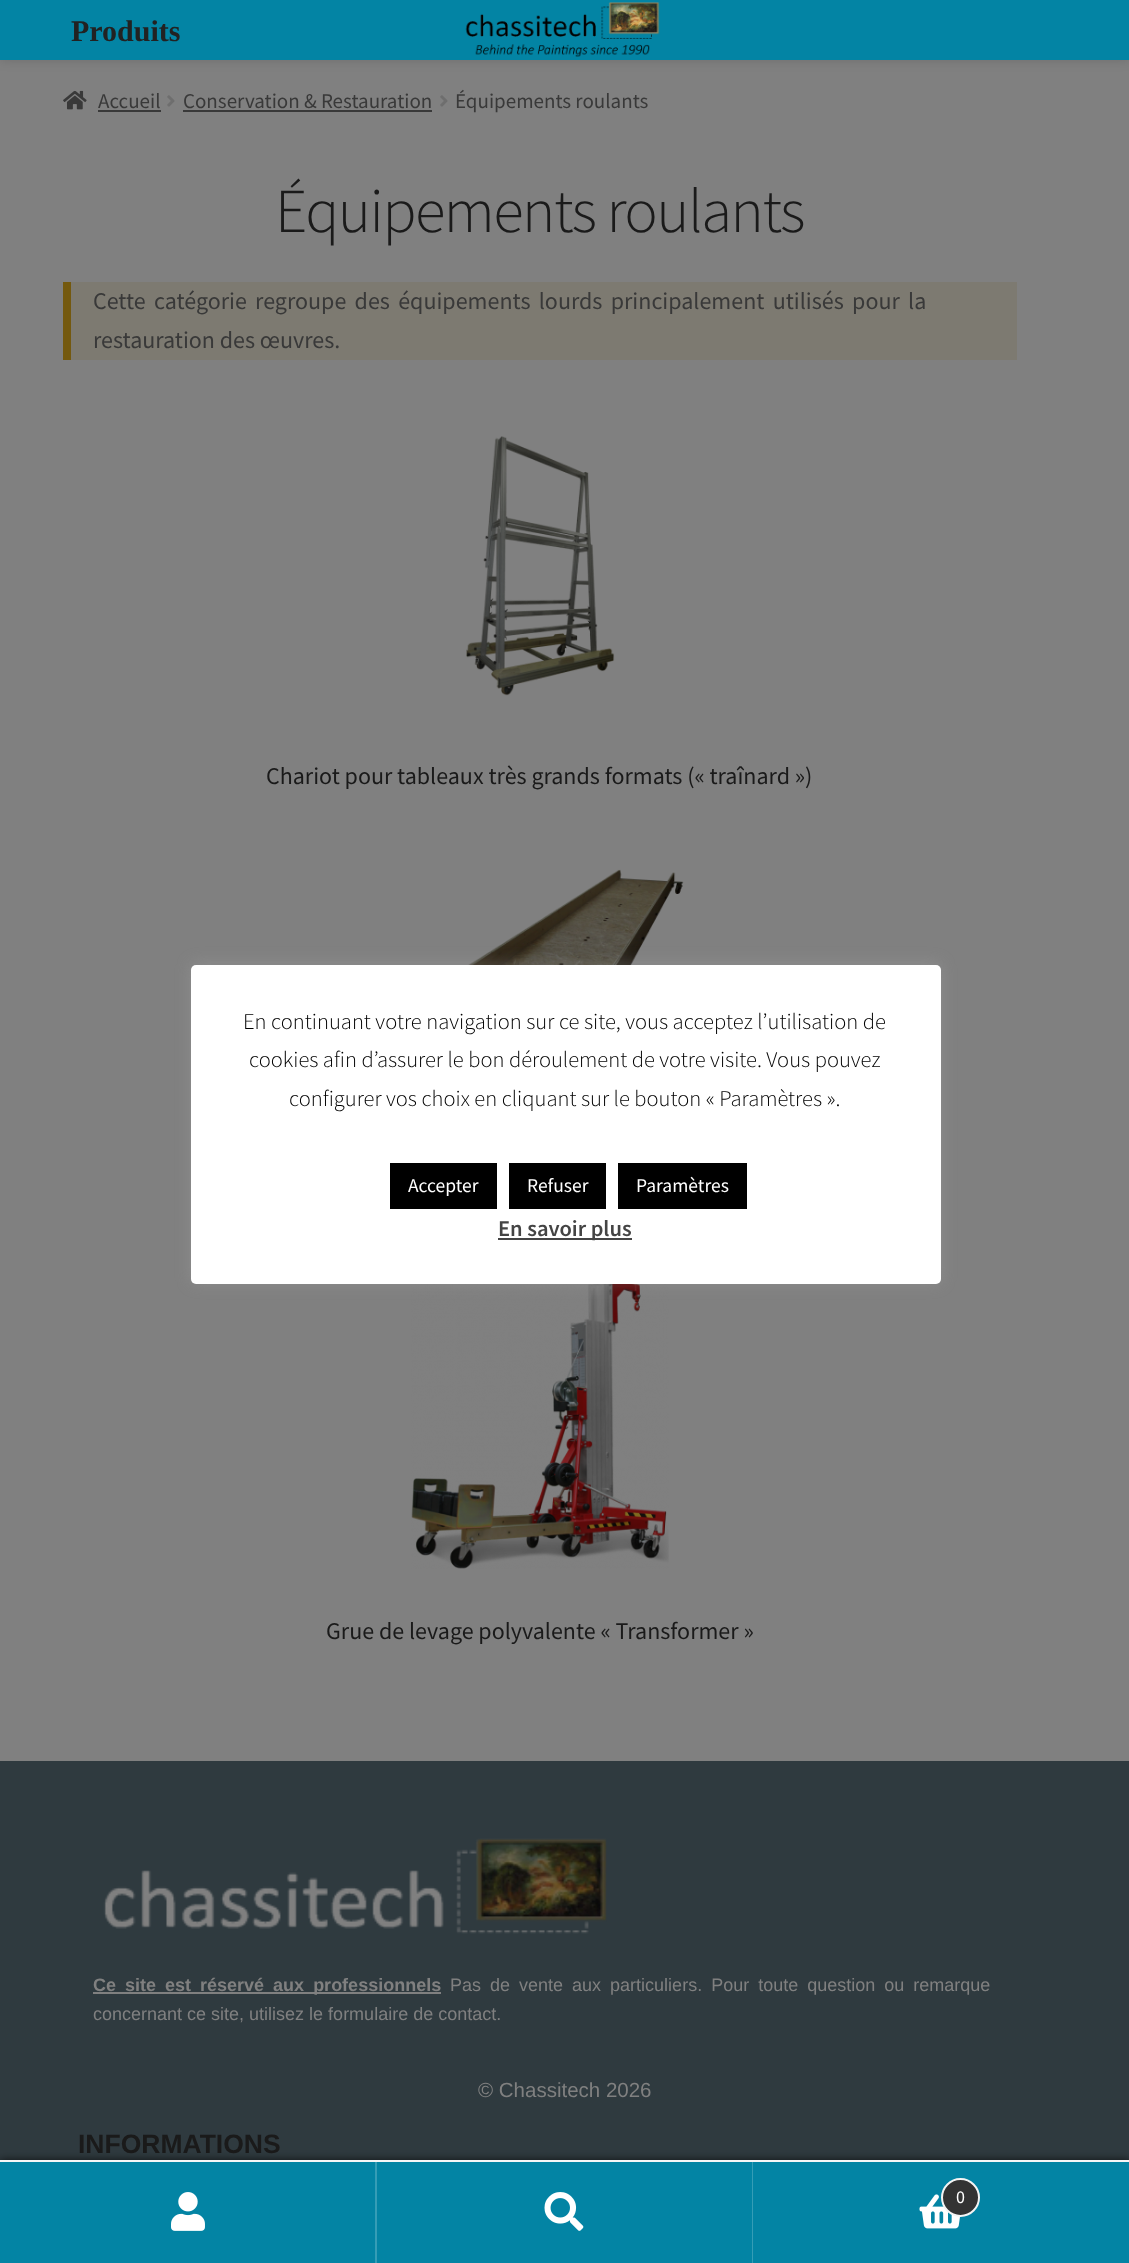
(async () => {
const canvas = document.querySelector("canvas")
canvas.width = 1129
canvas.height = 2263
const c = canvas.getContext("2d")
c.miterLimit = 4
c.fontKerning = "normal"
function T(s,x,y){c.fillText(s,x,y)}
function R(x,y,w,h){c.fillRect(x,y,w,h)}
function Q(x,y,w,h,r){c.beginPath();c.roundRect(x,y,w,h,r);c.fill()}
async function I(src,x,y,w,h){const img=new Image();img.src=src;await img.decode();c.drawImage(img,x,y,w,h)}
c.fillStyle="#808080"
R(0,0,1129,2263)
c.fillStyle="#00000026"
c.filter="blur(6px)"
c.beginPath()
c.rect(0,0,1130,60)
c.fill()
c.filter="none"
c.fillStyle="#0384a4"
R(0,0,1129,60)
await I("1.png",465,2,195,55)
c.font="bold 30px Liberation Serif"
c.fillStyle="#222"
T("Produits",71,41)
await I("2.png",63,90,24,20)
c.font="21px Source Sans Pro"
c.fillStyle="#393939"
T("Accueil",98,108)
R(98,110,63,2)
await I("3.png",167,95,8,12)
T("Conservation & Restauration",183,108)
R(183,110,249,2)
await I("3.png",440,95,8,12)
T("Équipements roulants",455,108)
c.letterSpacing="-1.5px"
c.font="300 62.75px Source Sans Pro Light"
c.fillStyle="#1a1a1a"
T("Équipements roulants",275,232)
c.fillStyle="#7d7a71"
R(71,282,946,78)
c.fillStyle="#74590e"
R(63,282,8,78)
c.letterSpacing="0px"
c.wordSpacing="3.5px"
c.font="24px Source Sans Pro"
c.fillStyle="#393939"
T("Cette catégorie regroupe des équipements lourds principalement utilisés pour la",93,309)
c.wordSpacing="0px"
T("restauration des œuvres.",93,348)
await I("4.png",466,436,149,260)
c.fillStyle="#1a1a1a"
T("Chariot pour tableaux très grands formats (« traînard »)",266,784)
await I("5.png",468,869,216,96)
await I("6.png",411,1284,258,285)
T("Grue de levage polyvalente « Transformer »",326,1639)
c.fillStyle="#2f3a3f"
R(0,1761,1129,399)
await I("7.png",103,1838,504,96)
c.fillStyle="#808080"
R(93,1992,348,2)
c.wordSpacing="4px"
c.font="bold 18px Liberation Sans"
T("Ce site est réservé aux professionnels",93,1991)
c.font="18px Liberation Sans"
T("Pas de vente aux particuliers. Pour toute question ou remarque",450,1991)
c.wordSpacing="0px"
T("concernant ce site, utilisez le formulaire de contact.",93,2020)
c.font="20.5px Liberation Sans"
T("© Chassitech 2026",478,2097)
c.font="bold 26.5px Liberation Sans"
c.fillStyle="#1a1a1a"
T("INFORMATIONS",78,2153)
c.fillStyle="#000000b3"
c.filter="blur(4.5px)"
c.beginPath()
c.rect(0,2160,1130,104)
c.fill()
c.filter="none"
c.fillStyle="#f6f6f6"
R(0,2160,1129,2)
c.fillStyle="#0384a4"
R(0,2162,375,101)
c.fillStyle="#359db6"
R(375,2162,2,101)
await I("8.png",171,2192,34,39)
c.fillStyle="#0384a4"
R(377,2162,375,101)
c.fillStyle="#359db6"
R(752,2162,1,101)
await I("9.png",544,2192,40,39)
c.fillStyle="#0384a4"
R(753,2162,376,101)
await I("10.png",919,2194,41,35)
c.fillStyle="#333"
c.beginPath()
c.arc(960.5,2197.5,18.5,0,7)
c.fill()
c.strokeStyle="#f4f4f4"
c.lineWidth=2
c.stroke()
c.font="18px Source Sans Pro"
c.fillStyle="#fff"
T("0",956,2203)
c.fillStyle="#acabab4d"
c.filter="blur(7.5px)"
c.beginPath()
c.roundRect(191,963,750,320,5)
c.fill()
c.filter="none"
c.fillStyle="#fff"
Q(191,965,750,319,5)
c.font="300 22.5px Source Sans Pro Light"
c.fillStyle="#000"
T("En continuant votre navigation sur ce site, vous acceptez l’utilisation de",243,1029)
T("cookies afin d’assurer le bon déroulement de votre visite. Vous pouvez",249,1067)
T("configurer vos choix en cliquant sur le bouton « Paramètres ».",289,1106)
R(390,1163,107,46)
c.font="19.5px Source Sans Pro"
c.fillStyle="#fff"
T("Accepter",408,1192)
c.fillStyle="#000"
R(509,1163,97,46)
c.fillStyle="#fff"
T("Refuser",527,1192)
c.fillStyle="#000"
R(618,1163,129,46)
c.fillStyle="#fff"
T("Paramètres",636,1192)
c.fillStyle="#444"
R(498,1238,134,2)
c.font="600 22.5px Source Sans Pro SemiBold"
T("En savoir plus",498,1236)
})()
